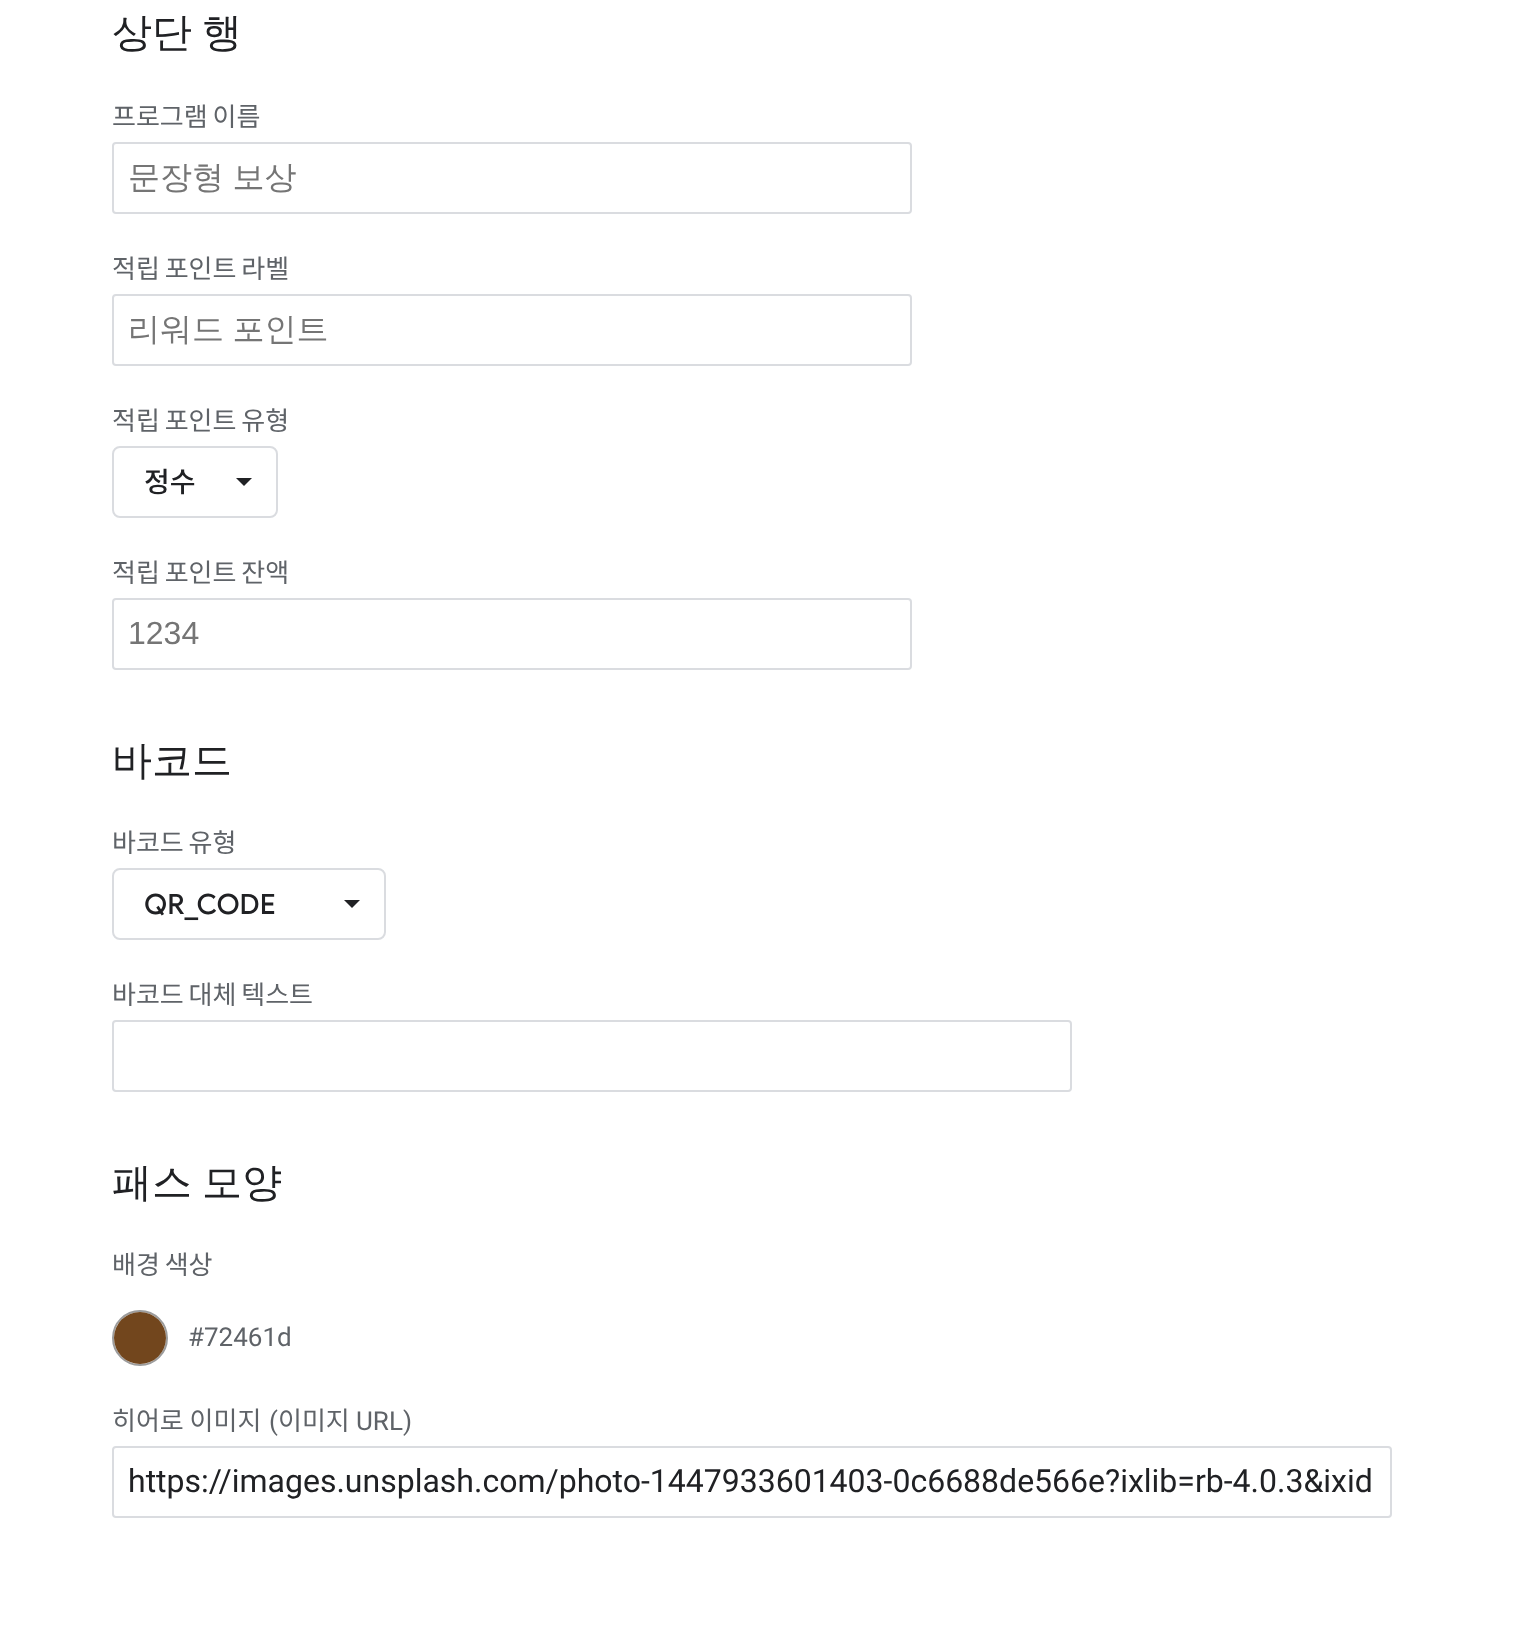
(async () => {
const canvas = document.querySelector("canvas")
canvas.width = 1517
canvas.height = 1630
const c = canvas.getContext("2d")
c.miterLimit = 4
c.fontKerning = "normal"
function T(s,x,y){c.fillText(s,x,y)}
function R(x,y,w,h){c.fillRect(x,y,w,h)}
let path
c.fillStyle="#fff"
R(0,0,1517,1630)
c.wordSpacing="-2px"
c.font="500 40px WenQuanYi Zen Hei"
c.fillStyle="#202124"
T("상단 행",112,46)
c.wordSpacing="-1px"
c.font="26px Noto Sans KR"
c.fillStyle="#5f6368"
T("프로그램 이름",112,126)
c.beginPath()
c.roundRect(113,143,798,70,3)
c.strokeStyle="#dadce0"
c.lineWidth=2
c.stroke()
c.font="500 32px WenQuanYi Zen Hei"
c.fillStyle="#757575"
T("문장형 보상",128,188)
c.font="26px Noto Sans KR"
c.fillStyle="#5f6368"
T("적립 포인트 라벨",112,278)
c.beginPath()
c.roundRect(113,295,798,70,3)
c.stroke()
c.font="500 32px WenQuanYi Zen Hei"
c.fillStyle="#757575"
T("리워드 포인트",128,340)
c.font="26px Noto Sans KR"
c.fillStyle="#5f6368"
T("적립 포인트 유형",112,430)
c.fillStyle="#202124"
path = new Path2D("M236 478l8 8l8-8z")
c.fill(path)
c.beginPath()
c.roundRect(113,447,164,70,7)
c.stroke()
c.wordSpacing="0px"
c.font="500 28px Noto Sans KR"
T("정수",144,492)
c.wordSpacing="-1px"
c.font="26px Noto Sans KR"
c.fillStyle="#5f6368"
T("적립 포인트 잔액",112,582)
c.beginPath()
c.roundRect(113,599,798,70,3)
c.stroke()
c.wordSpacing="0px"
c.font="32px Liberation Sans"
c.fillStyle="#757575"
T("1234",128,644)
c.font="500 40px WenQuanYi Zen Hei"
c.fillStyle="#202124"
T("바코드",112,774)
c.wordSpacing="-1px"
c.font="26px Noto Sans KR"
c.fillStyle="#5f6368"
T("바코드 유형",112,852)
c.fillStyle="#202124"
path = new Path2D("M344 900l8 8l8-8z")
c.fill(path)
c.beginPath()
c.roundRect(113,869,272,70,7)
c.stroke()
c.wordSpacing="0px"
c.font="500 28px Google Sans"
T("QR_CODE",144,914)
c.wordSpacing="-1px"
c.font="26px Noto Sans KR"
c.fillStyle="#5f6368"
T("바코드 대체 텍스트",112,1004)
c.beginPath()
c.roundRect(113,1021,958,70,3)
c.stroke()
c.wordSpacing="-2px"
c.font="500 40px WenQuanYi Zen Hei"
c.fillStyle="#202124"
T("패스 모양",112,1196)
c.wordSpacing="-1px"
c.font="26px Noto Sans KR"
c.fillStyle="#5f6368"
T("배경 색상",112,1274)
c.beginPath()
c.arc(140,1338,27,0,7)
c.strokeStyle="#9c9c9c"
c.stroke()
c.fillStyle="#72461d"
c.beginPath()
c.arc(140,1338,26,0,7)
c.fill()
c.wordSpacing="0px"
c.font="26px Roboto"
c.fillStyle="#5f6368"
T("#72461d",188,1346)
c.font="26px Noto Sans KR"
T("히어로 이미지",112,1430)
c.font="26px Roboto"
T("(",269,1430)
c.font="26px Noto Sans KR"
T("이미지",278,1430)
c.font="26px Roboto"
T("URL)",356,1430)
c.beginPath()
c.roundRect(113,1447,1278,70,3)
c.strokeStyle="#dadce0"
c.stroke()
c.font="32px Roboto"
c.fillStyle="#202124"
T("https://images.unsplash.com/photo-1447933601403-0c6688de566e?ixlib=rb-4.0.3&ixid",128,1492)
})()
